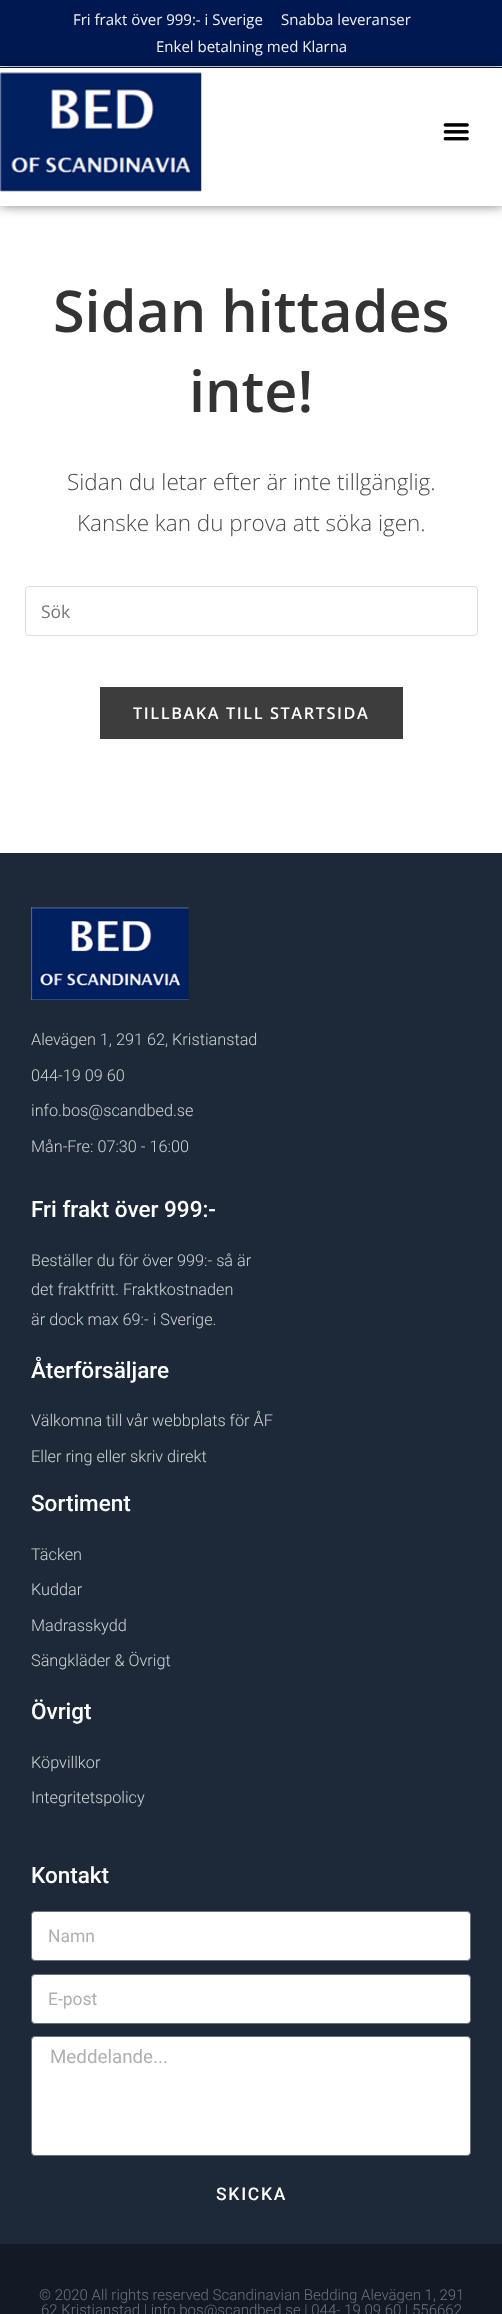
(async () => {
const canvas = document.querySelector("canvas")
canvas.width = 502
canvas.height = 2314
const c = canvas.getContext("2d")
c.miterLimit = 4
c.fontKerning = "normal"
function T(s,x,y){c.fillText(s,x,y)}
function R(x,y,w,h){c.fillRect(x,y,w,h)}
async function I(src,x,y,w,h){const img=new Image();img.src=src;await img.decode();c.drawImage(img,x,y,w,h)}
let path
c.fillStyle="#fff"
R(0,0,502,2314)
c.fillStyle="#001851"
R(0,0,502,68)
c.fillStyle="#f1f1f1"
R(0,66,502,1)
c.font="15px Open Sans"
c.fillStyle="#f2f2f2"
T("Fri frakt över 999:- i Sverige",73,25)
T("Snabba leveranser",281,25)
T("Enkel betalning med Klarna",156,52)
c.save()
path = new Path2D("M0 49h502v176h-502zm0 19h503v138h-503z")
c.clip(path,"evenodd")
c.fillStyle="#00000080"
c.filter="blur(6px)"
c.beginPath()
c.rect(0,68,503,138)
c.fill()
c.filter="none"
c.restore()
await I("1.png",0,72,202,120)
await I("2.png",443,123,26,18)
c.font="600 57.5px Open Sans"
c.fillStyle="#333"
T("Sidan hittades",53,332)
T("inte!",189,412)
c.font="300 22.5px Open Sans"
c.fillStyle="#4a4a4a"
T("Sidan du letar efter är inte tillgänglig.",67,490)
T("Kanske kan du prova att söka igen.",77,531)
c.beginPath()
c.roundRect(25.5,586.5,452,49,3.5)
c.strokeStyle="#ddd"
c.stroke()
c.font="17.5px Open Sans"
c.fillStyle="#757575"
T("Sök",41,618)
c.fillStyle="#3d3d3d"
R(100,687,303,52)
c.letterSpacing="1.6px"
c.font="600 16.25px Open Sans"
c.fillStyle="#fff"
T("TILLBAKA TILL STARTSIDA",133,719)
c.fillStyle="#1d2939"
R(0,853,502,1391)
await I("3.png",31,907,158,93)
c.letterSpacing="0px"
c.font="300 16.25px Roboto"
c.fillStyle="#d0d2d5"
T("Alevägen 1, 291 62, Kristianstad",31,1045)
T("044-19 09 60",31,1081)
T("info.bos@scandbed.se",31,1116)
T("Mån-Fre: 07:30 - 16:00",31,1152)
c.font="500 22.5px Roboto"
c.fillStyle="#fff"
T("Fri frakt över 999:-",31,1217)
c.font="300 16.25px Roboto"
c.fillStyle="#d0d2d5"
T("Beställer du för över 999:- så är",31,1266)
T("det fraktfritt. Fraktkostnaden",31,1295)
T("är dock max 69:- i Sverige.",31,1325)
c.font="500 22.5px Roboto"
c.fillStyle="#fff"
T("Återförsäljare",31,1378)
c.font="300 16.25px Roboto"
c.fillStyle="#d0d2d5"
T("Välkomna till vår webbplats för ÅF",31,1426)
T("Eller ring eller skriv direkt",31,1462)
c.font="500 22.5px Roboto"
c.fillStyle="#fff"
T("Sortiment",31,1511)
c.font="300 16.25px Roboto"
c.fillStyle="#d0d2d5"
T("Täcken",31,1560)
T("Kuddar",31,1595)
T("Madrasskydd",31,1631)
T("Sängkläder & Övrigt",31,1666)
c.font="500 22.5px Roboto"
c.fillStyle="#fff"
T("Övrigt",31,1719)
c.font="300 16.25px Roboto"
c.fillStyle="#d0d2d5"
T("Köpvillkor",31,1768)
T("Integritetspolicy",31,1803)
c.font="500 22.5px Roboto"
c.fillStyle="#fff"
T("Kontakt",31,1883)
c.beginPath()
c.roundRect(31.5,1911.5,439,49,3.5)
c.fill()
c.strokeStyle="#69727d"
c.stroke()
c.font="17.5px Roboto"
c.fillStyle="#afafaf"
T("Namn",48,1942)
c.fillStyle="#fff"
c.beginPath()
c.roundRect(31.5,1974.5,439,49,3.5)
c.fill()
c.stroke()
c.fillStyle="#afafaf"
T("E-post",48,2005)
c.fillStyle="#fff"
c.beginPath()
c.roundRect(31.5,2036.5,439,119,3.5)
c.fill()
c.stroke()
c.font="18.75px Roboto"
c.fillStyle="#afafaf"
T("Meddelande...",50,2063)
c.letterSpacing="1.75px"
c.font="500 17.5px Roboto"
c.fillStyle="#fff"
T("SKICKA",216,2200)
c.fillStyle="#121a26"
R(0,2244,502,70)
c.letterSpacing="0px"
c.font="300 15px Roboto"
c.fillStyle="#6e737b"
T("© 2020 All rights reserved Scandinavian Bedding Alevägen 1, 291",39,2300)
T("62 Kristianstad | info.bos@scandbed.se | 044- 19 09 60 | 556662",41,2315)
})()
